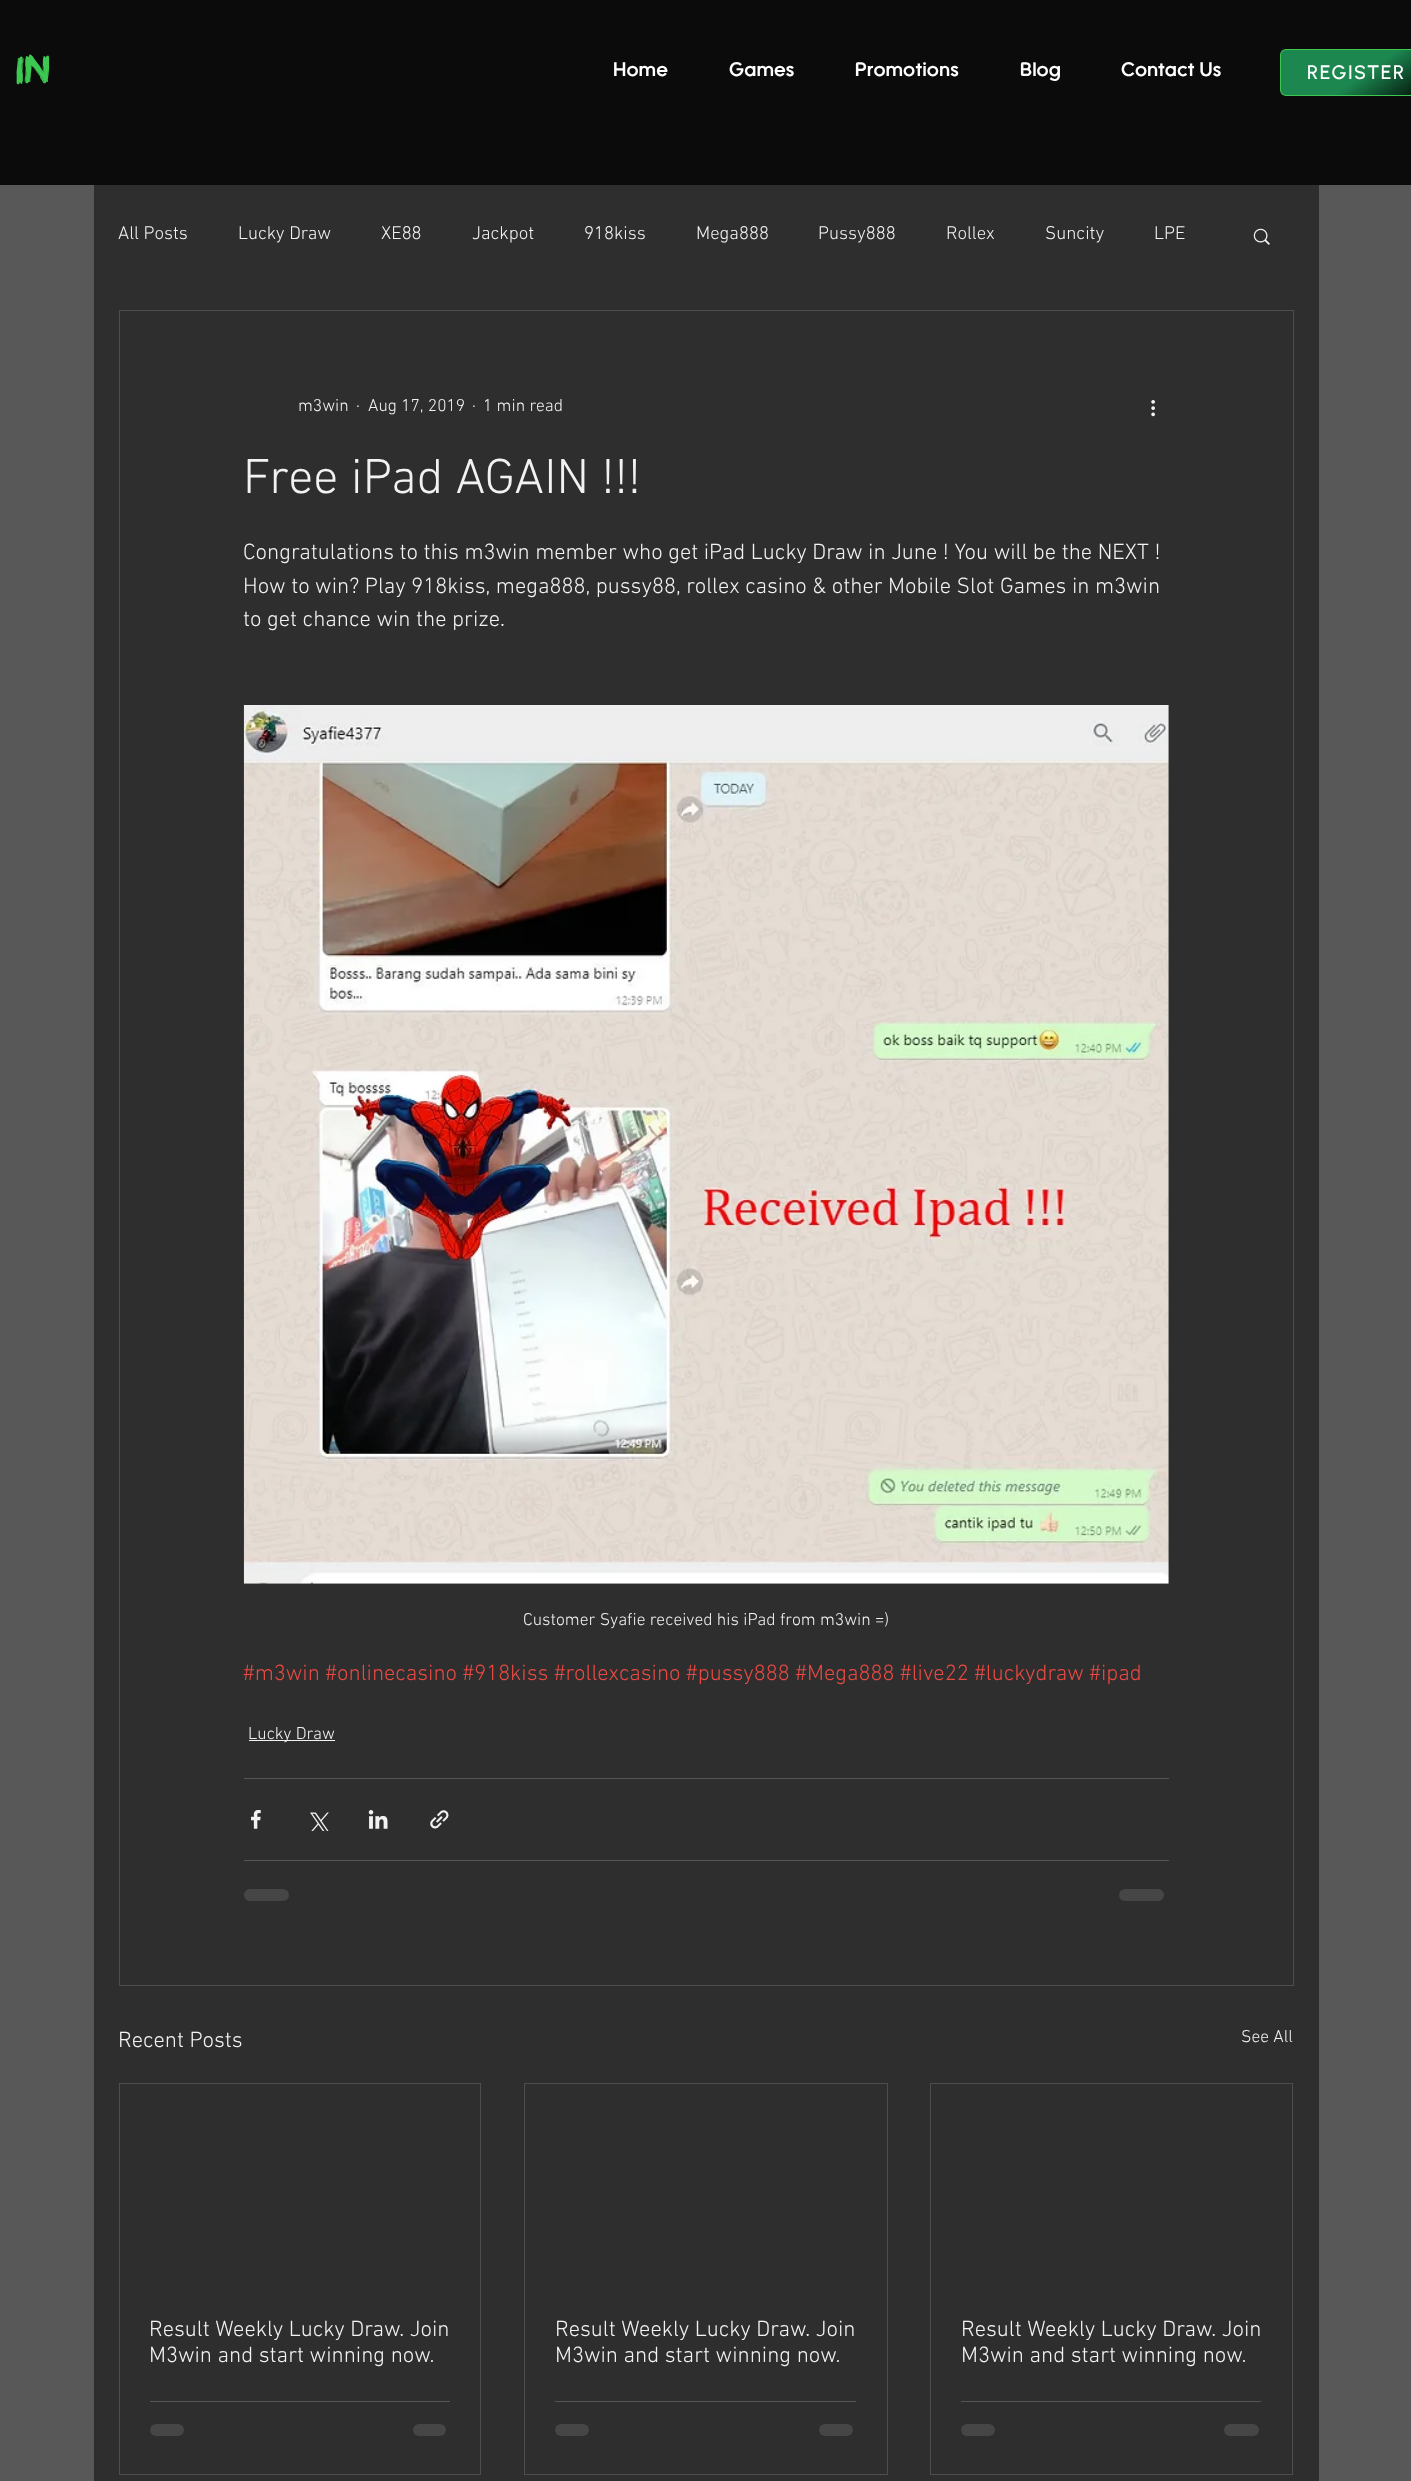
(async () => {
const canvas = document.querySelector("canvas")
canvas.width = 1411
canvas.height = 2481
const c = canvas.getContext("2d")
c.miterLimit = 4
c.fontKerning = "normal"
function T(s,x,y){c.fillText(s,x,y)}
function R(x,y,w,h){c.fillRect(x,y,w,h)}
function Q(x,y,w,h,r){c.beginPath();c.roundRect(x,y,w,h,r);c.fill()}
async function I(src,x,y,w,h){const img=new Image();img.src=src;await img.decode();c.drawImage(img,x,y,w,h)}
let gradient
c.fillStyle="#595858"
R(0,0,1411,2481)
c.fillStyle="#0b0b0b"
R(0,0,1411,185)
c.font="bold 38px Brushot"
c.fillStyle="#3dc852"
T("IN",16,84)
c.letterSpacing="1px"
c.font="bold 18.75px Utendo"
c.fillStyle="#fff"
T("Home",613,76)
T("Games",729,76)
T("Promotions",855,76)
T("Blog",1020,76)
T("Contact Us",1121,76)
c.save()
c.beginPath()
c.roundRect(1280,49,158,47,6)
c.clip()
gradient = c.createLinearGradient(1395,124,1323,21)
gradient.addColorStop(0,"#000")
gradient.addColorStop(.47,"#1c8850")
c.fillStyle = gradient
R(1281,50,130,45)
c.restore()
c.beginPath()
c.roundRect(1280.5,49.5,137,46,5.5)
c.strokeStyle="#3dc852"
c.stroke()
c.letterSpacing="2px"
c.font="bold 18.75px Urbanist"
T("REGISTER",1307,79)
c.fillStyle="#2f2e2e"
R(94,185,1225,2296)
c.letterSpacing="0px"
c.font="300 18.75px 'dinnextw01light'"
c.fillStyle="#f2f2f2"
T("All Posts",118,239)
T("Lucky Draw",238,239)
T("XE88",381,239)
T("Jackpot",472,239)
T("918kiss",584,239)
T("Mega888",696,239)
T("Pussy888",818,239)
T("Rollex",946,239)
T("Suncity",1045,239)
T("LPE",1154,239)
await I("1.png",1253,228,17,17)
c.strokeStyle="#4f4e4e"
c.strokeRect(119.5,310.5,1174,1675)
c.font="300 17.5px 'dinnextw01light'"
T("m3win",298,411)
T("·",356,411)
T("Aug 17, 2019",368,411)
T("·",472,411)
T("1 min read",483,411)
await I("2.png",1151,400,4,17)
c.font="300 50px 'dinnextw01light'"
T("Free iPad AGAIN !!!",243,493)
c.font="300 22.5px 'dinnextw01light'"
T("Congratulations to this m3win member who get iPad Lucky Draw in June ! You will be the NEXT !",243,559)
T("How to win? Play 918kiss, mega888, pussy88, rollex casino & other Mobile Slot Games in m3win",243,593)
T("to get chance win the prize.",243,626)
await I("3.png",243,705,926,879)
c.font="300 17.5px 'dinnextw01light'"
T("Customer Syafie received his iPad from m3win =)",523,1625)
c.font="300 22.5px 'dinnextw01light'"
c.fillStyle="#e84a43"
T("#m3win #onlinecasino #918kiss #rollexcasino #pussy888 #Mega888 #live22 #luckydraw #ipad",243,1680)
c.fillStyle="#f2f2f2"
R(249,1740,86,1)
c.font="300 17.5px 'dinnextw01light'"
T("Lucky Draw",248,1739)
c.fillStyle="#565555"
R(244,1778,925,1)
await I("4.png",251,1810,10,19)
await I("5.png",310,1812,19,19)
await I("6.png",368,1810,20,19)
await I("7.png",430,1810,19,19)
R(244,1860,925,1)
c.fillStyle="#464646"
Q(244,1889,45,12,6)
Q(1119,1889,45,12,6)
c.font="300 22.5px 'dinnextw01light'"
c.fillStyle="#f2f2f2"
T("Recent Posts",118,2047)
c.font="300 17.5px 'dinnextw01light'"
T("See All",1241,2042)
c.strokeRect(119.5,2083.5,361,391)
c.font="300 22.5px 'dinnextw01light'"
T("Result Weekly Lucky Draw. Join",149,2336)
T("M3win and start winning now.",149,2362)
c.fillStyle="#565555"
R(150,2401,300,1)
c.fillStyle="#464646"
Q(150,2424,34,12,6)
Q(413,2424,33,12,6)
c.strokeRect(524.5,2083.5,363,391)
c.fillStyle="#f2f2f2"
T("Result Weekly Lucky Draw. Join",555,2336)
T("M3win and start winning now.",555,2362)
c.fillStyle="#565555"
R(555,2401,301,1)
c.fillStyle="#464646"
Q(555,2424,34,12,6)
Q(819,2424,34,12,6)
c.strokeRect(930.5,2083.5,362,391)
c.fillStyle="#f2f2f2"
T("Result Weekly Lucky Draw. Join",961,2336)
T("M3win and start winning now.",961,2362)
c.fillStyle="#565555"
R(961,2401,300,1)
c.fillStyle="#464646"
Q(961,2424,34,12,6)
Q(1224,2424,35,12,6)
})()
